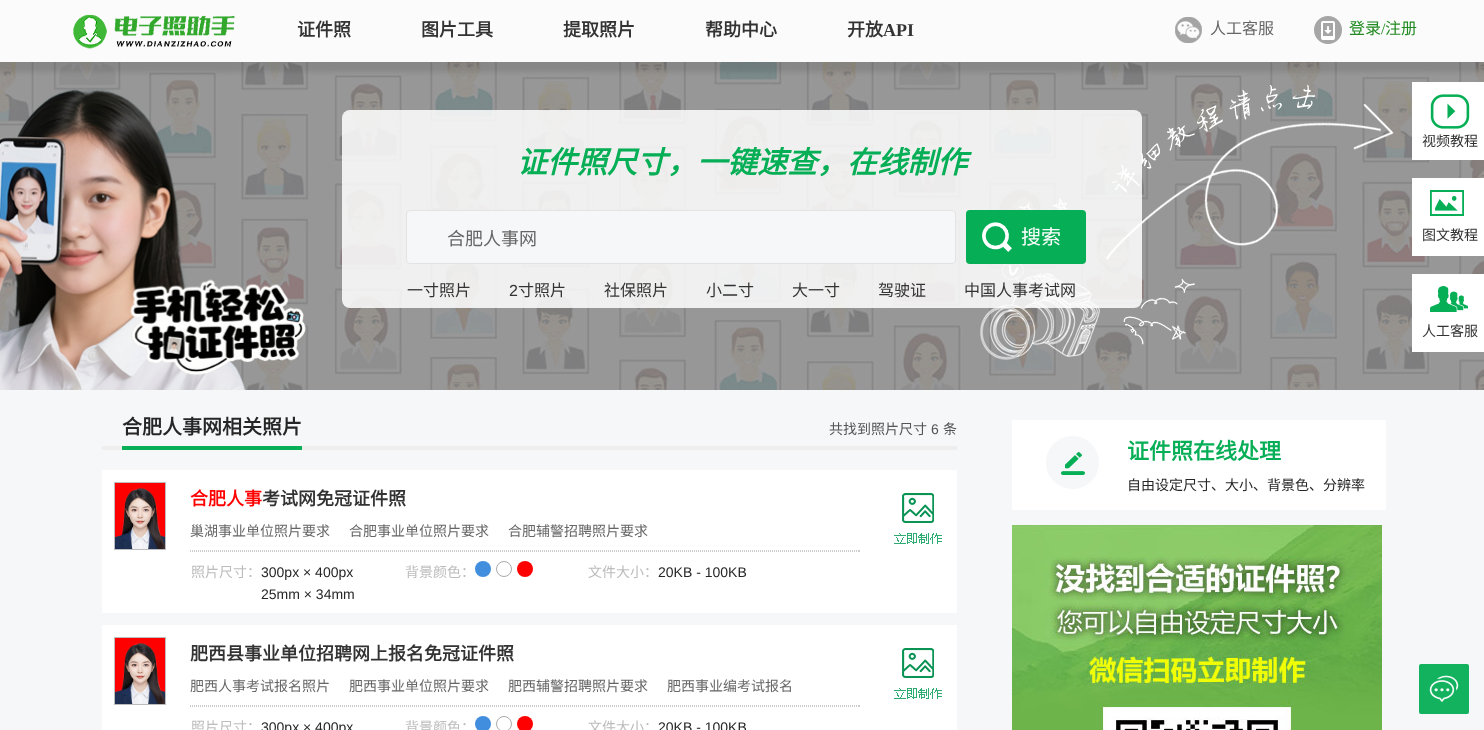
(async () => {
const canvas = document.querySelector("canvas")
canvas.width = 1484
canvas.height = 730
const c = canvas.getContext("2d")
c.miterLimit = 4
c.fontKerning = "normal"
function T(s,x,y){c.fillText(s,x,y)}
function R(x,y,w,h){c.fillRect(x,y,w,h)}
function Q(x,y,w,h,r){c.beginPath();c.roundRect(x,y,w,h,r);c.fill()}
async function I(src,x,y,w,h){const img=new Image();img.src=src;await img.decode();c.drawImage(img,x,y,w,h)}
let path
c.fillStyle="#fff"
R(0,0,1484,730)
await I("4.png",0,62,1484,328)
c.fillStyle="#0000001a"
c.filter="blur(2.5px)"
c.beginPath()
c.rect(-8,-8,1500,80)
c.fill()
c.filter="none"
c.fillStyle="#fbfbfb"
R(0,0,1484,62)
await I("1.png",73,14,162,35)
c.font="bold 18px Noto Sans CJK SC"
c.fillStyle="#333"
T("证件照",297,36)
T("图片工具",421,36)
T("提取照片",563,36)
T("帮助中心",705,36)
T("开放",847,36)
c.font="bold 18px Liberation Serif"
T("API",883,36)
await I("2.png",1175,17,27,26)
c.font="16px Noto Sans CJK SC"
c.fillStyle="#666"
T("人工客服",1210,34)
await I("3.png",1314,16,28,28)
c.fillStyle="#228b22"
T("登录",1349,34)
c.font="16px Liberation Serif"
T("/",1381,34)
c.font="16px Noto Sans CJK SC"
T("注册",1385,34)
await I("5.png",0,88,306,302)
await I("7.png",980,84,414,276)
c.fillStyle="#ffffffd9"
Q(342,110,800,198,8)
c.font="italic bold 30px Noto Sans CJK SC"
c.fillStyle="#06ae56"
T("证件照尺寸，一键速查，在线制作",517,173)
c.fillStyle="#f6f7f9"
c.beginPath()
c.roundRect(406.5,210.5,549,53,3.5)
c.fill()
c.strokeStyle="#e3e3e3"
c.stroke()
c.font="18px Noto Sans CJK SC"
c.fillStyle="#666"
T("合肥人事网",447,245)
c.fillStyle="#06ae56"
Q(966,210,120,54,4)
await I("6.png",982,222,30,30)
c.font="20px Noto Sans CJK SC"
c.fillStyle="#fff"
T("搜索",1021,244)
c.font="16px Noto Sans CJK SC"
c.fillStyle="#333"
T("一寸照片",407,296)
c.font="16px Liberation Sans"
T("2",509,296)
c.font="16px Noto Sans CJK SC"
T("寸照片",518,296)
T("社保照片",604,296)
T("小二寸",706,296)
T("大一寸",792,296)
T("驾驶证",878,296)
T("中国人事考试网",964,296)
c.fillStyle="#fff"
R(1412,82,72,78)
await I("8.png",1430,94,40,35)
c.font="14px Noto Sans CJK SC"
c.fillStyle="#333"
T("视频教程",1422,146)
c.fillStyle="#fff"
R(1412,178,72,78)
await I("9.png",1430,190,34,26)
c.fillStyle="#333"
T("图文教程",1422,240)
c.fillStyle="#fff"
R(1412,274,72,78)
await I("10.png",1430,286,38,26)
c.fillStyle="#333"
T("人工客服",1422,336)
c.fillStyle="#f6f7f9"
R(0,390,1484,340)
c.fillStyle="#eee"
R(102,446,855,4)
c.fillStyle="#06ae56"
R(122,446,180,4)
c.font="bold 20px Noto Sans CJK SC"
c.fillStyle="#262626"
T("合肥人事网相关照片",122,434)
c.font="14px Noto Sans CJK SC"
c.fillStyle="#555"
T("共找到照片尺寸",829,434)
c.font="14px Liberation Sans"
T("6",931,434)
c.font="14px Noto Sans CJK SC"
T("条",943,434)
c.fillStyle="#fff"
R(102,470,855,143)
c.fillStyle="#f00"
R(115,483,50,55)
c.strokeStyle="#bcbcbc"
c.strokeRect(114.5,482.5,51,67)
await I("11.png",115,487,50,62)
c.font="bold 18px Noto Sans CJK SC"
T("合肥人事",190,505)
c.fillStyle="#333"
T("考试网免冠证件照",262,505)
c.font="14px Noto Sans CJK SC"
c.fillStyle="#666"
T("巢湖事业单位照片要求",190,536)
T("合肥事业单位照片要求",349,536)
T("合肥辅警招聘照片要求",508,536)
path = new Path2D("M190 550.5h670")
c.strokeStyle="#ccc"
c.setLineDash([1,1])
c.stroke(path)
c.fillStyle="#ccc"
R(859,550,1,2)
path = new Path2D("M190 551.5h670")
c.stroke(path)
c.fillStyle="#bcbcbc"
T("照片尺寸：",191,577)
c.font="14px Liberation Sans"
c.fillStyle="#262626"
T("300px × 400px",261,577)
T("25mm × 34mm",261,599)
c.font="14px Noto Sans CJK SC"
c.fillStyle="#bcbcbc"
T("背景颜色：",405,577)
c.fillStyle="#418ede"
c.beginPath()
c.arc(483,569,8,0,7)
c.fill()
c.beginPath()
c.arc(504,569,7.5,0,7)
c.strokeStyle="#aaa"
c.setLineDash([])
c.stroke()
c.fillStyle="#f00"
c.beginPath()
c.arc(525,569,8,0,7)
c.fill()
c.fillStyle="#bcbcbc"
T("文件大小：",588,577)
c.font="14px Liberation Sans"
c.fillStyle="#262626"
T("20KB - 100KB",658,577)
await I("12.png",894,493,48,53)
c.fillStyle="#fff"
R(102,625,855,105)
c.fillStyle="#f00"
R(115,638,50,55)
c.strokeStyle="#bcbcbc"
c.strokeRect(114.5,637.5,51,67)
await I("11.png",115,642,50,62)
c.font="bold 18px Noto Sans CJK SC"
c.fillStyle="#333"
T("肥西县事业单位招聘网上报名免冠证件照",190,660)
c.font="14px Noto Sans CJK SC"
c.fillStyle="#666"
T("肥西人事考试报名照片",190,691)
T("肥西事业单位照片要求",349,691)
T("肥西辅警招聘照片要求",508,691)
T("肥西事业编考试报名",667,691)
path = new Path2D("M190 705.5h670")
c.strokeStyle="#ccc"
c.setLineDash([1,1])
c.stroke(path)
c.fillStyle="#ccc"
R(859,705,1,2)
path = new Path2D("M190 706.5h670")
c.stroke(path)
c.fillStyle="#bcbcbc"
T("照片尺寸：",191,732)
c.font="14px Liberation Sans"
c.fillStyle="#262626"
T("300px × 400px",261,732)
c.font="14px Noto Sans CJK SC"
c.fillStyle="#bcbcbc"
T("背景颜色：",405,732)
c.fillStyle="#418ede"
c.beginPath()
c.arc(483,724,8,0,7)
c.fill()
c.beginPath()
c.arc(504,724,7.5,0,7)
c.strokeStyle="#aaa"
c.setLineDash([])
c.stroke()
c.fillStyle="#f00"
c.beginPath()
c.arc(525,724,8,0,7)
c.fill()
c.fillStyle="#bcbcbc"
T("文件大小：",588,732)
c.font="14px Liberation Sans"
c.fillStyle="#262626"
T("20KB - 100KB",658,732)
await I("12.png",894,648,48,53)
c.fillStyle="#fff"
R(1012,420,374,90)
await I("13.png",1046,436,53,53)
c.font="bold 22px Noto Sans CJK SC"
c.fillStyle="#06ae56"
T("证件照在线处理",1127,459)
c.font="14px Noto Sans CJK SC"
c.fillStyle="#262626"
T("自由设定尺寸、大小、背景色、分辨率",1127,490)
await I("14.png",1012,525,370,205)
c.fillStyle="#12b25e"
Q(1419,664,50,50,2)
await I("15.png",1429,675,30,27)
})()
